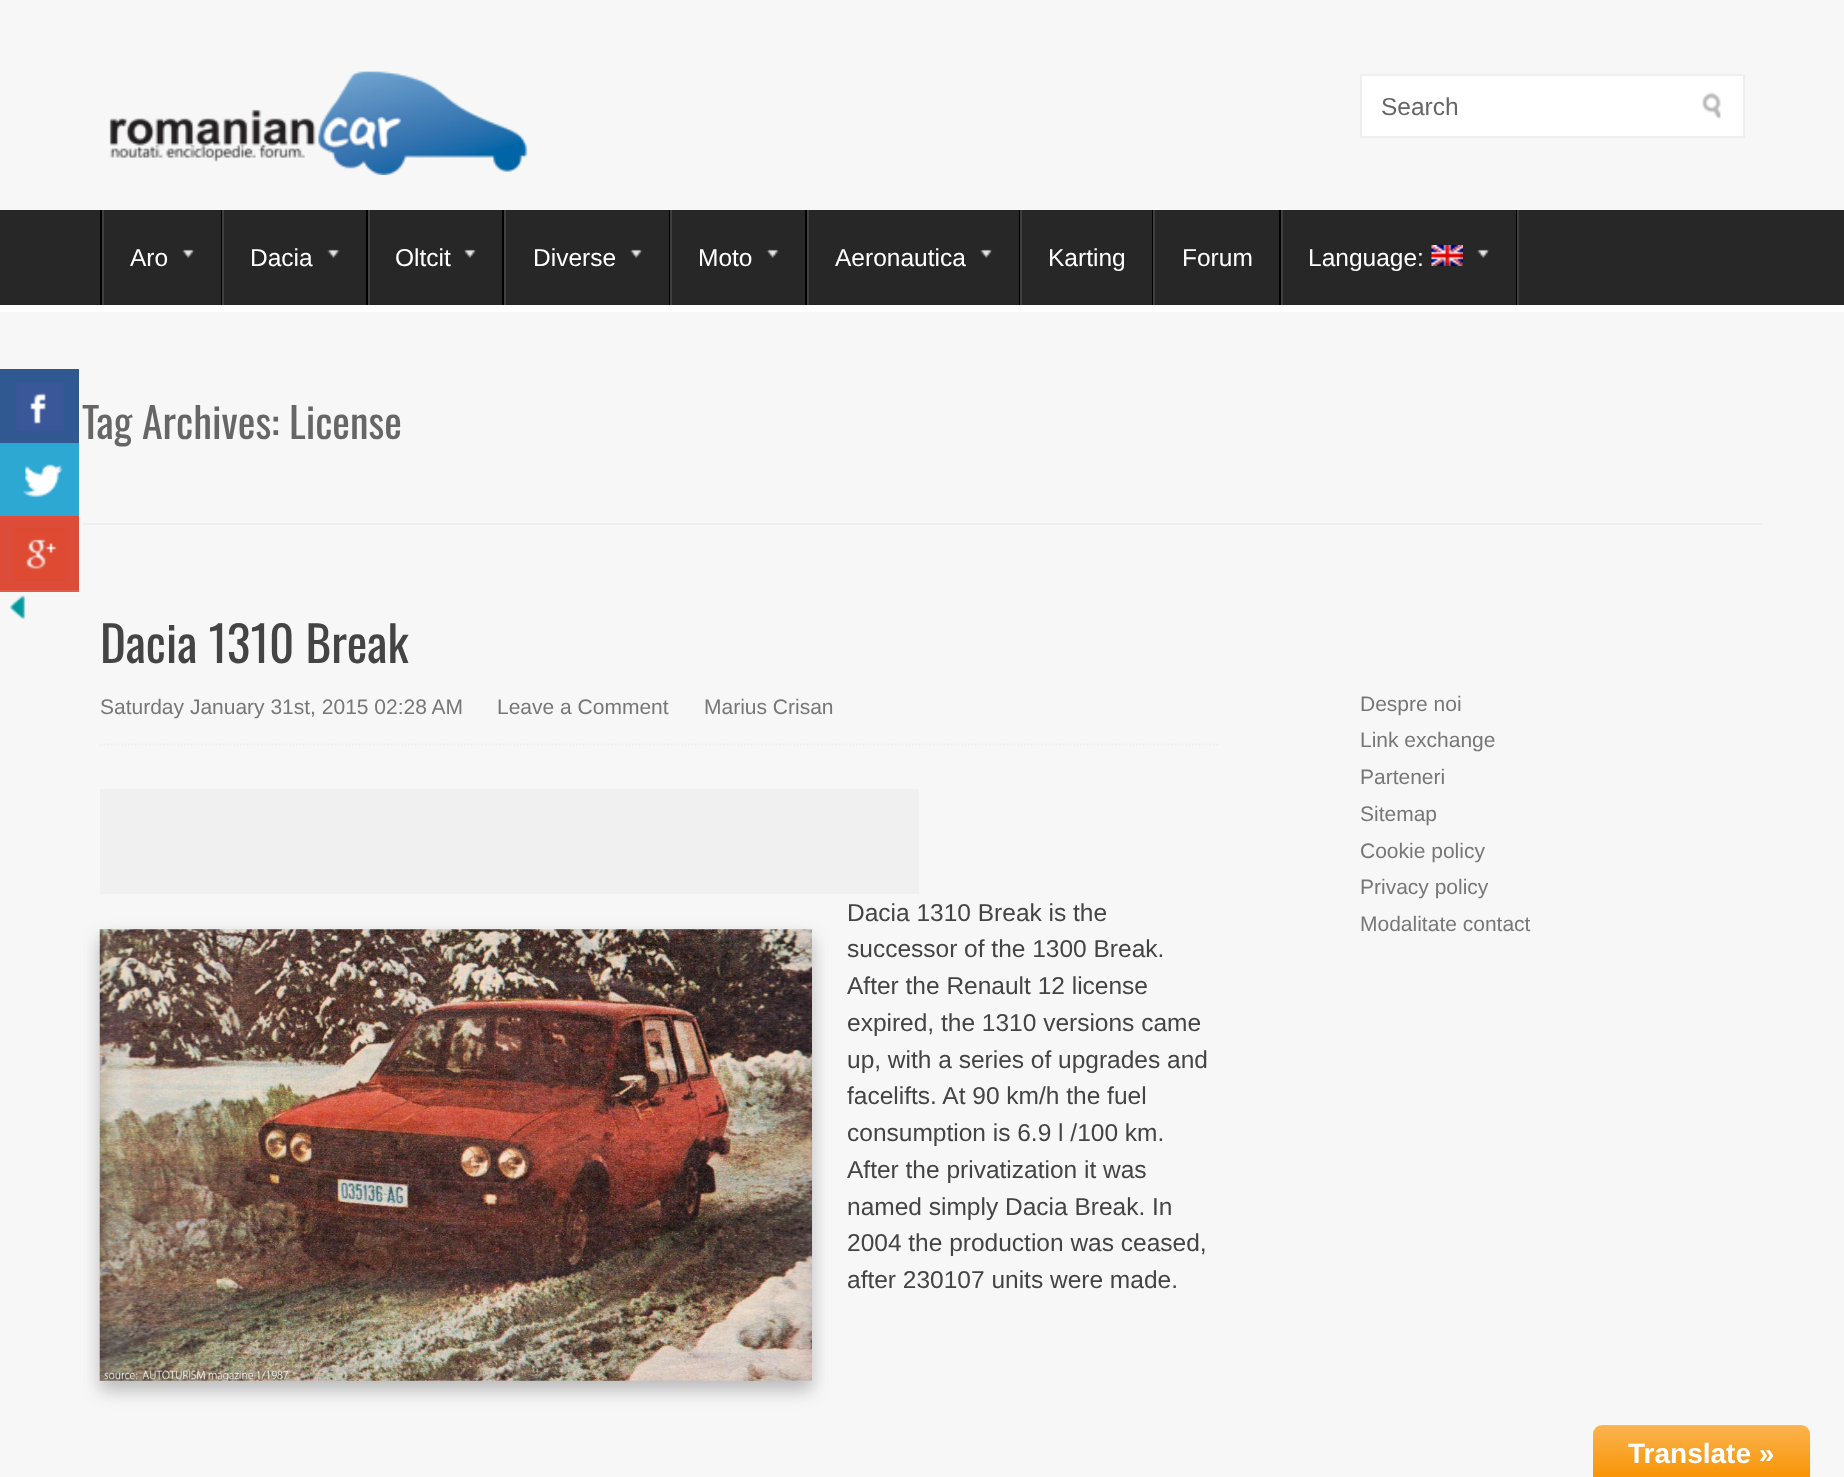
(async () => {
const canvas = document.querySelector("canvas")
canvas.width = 1844
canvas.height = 1477
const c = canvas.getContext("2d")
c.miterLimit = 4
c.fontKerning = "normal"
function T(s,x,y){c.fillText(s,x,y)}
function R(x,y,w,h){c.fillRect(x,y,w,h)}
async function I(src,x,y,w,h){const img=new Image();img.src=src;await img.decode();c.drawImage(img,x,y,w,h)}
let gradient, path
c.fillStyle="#f7f7f7"
R(0,0,1844,1477)
c.fillStyle="#305891"
R(0,369,79,74)
await I("1.png",15,383,49,49)
c.fillStyle="#2ca8d2"
R(0,443,79,73)
await I("2.png",23,464,40,34)
c.fillStyle="#dd4c39"
R(0,516,79,74)
c.fillStyle="#e05e4d"
R(0,590,79,2)
await I("3.png",13,528,53,53)
await I("4.png",10,595,15,25)
await I("5.png",109,71,419,104)
c.fillStyle="#fff"
c.beginPath()
c.rect(1361,75,383,62)
c.fill()
c.strokeStyle="#eee"
c.lineWidth=2
c.stroke()
c.font="24.5px Liberation Sans"
c.fillStyle="#666"
T("Search",1381,115)
await I("6.png",1702,92,19,27)
c.fillStyle="#272727"
R(0,210,1844,95)
c.fillStyle="#fff"
R(0,305,1844,7)
c.fillStyle="#000"
R(100,210,2,95)
R(221,210,1,95)
c.fillStyle="#3f3f3f"
R(102,210,2,95)
c.fillStyle="#fff"
T("Aro",130,266)
await I("7.png",182,249,13,9)
c.fillStyle="#000"
R(366,210,2,95)
c.fillStyle="#3f3f3f"
R(222,210,2,95)
c.fillStyle="#fff"
T("Dacia",250,266)
await I("8.png",327,249,13,9)
c.fillStyle="#000"
R(502,210,2,95)
c.fillStyle="#3f3f3f"
R(368,210,2,95)
c.fillStyle="#fff"
T("Oltcit",395,266)
await I("9.png",463,249,13,9)
c.fillStyle="#000"
R(669,210,1,95)
c.fillStyle="#3f3f3f"
R(504,210,2,95)
c.fillStyle="#fff"
T("Diverse",533,266)
await I("7.png",630,249,13,9)
c.fillStyle="#000"
R(805,210,2,95)
c.fillStyle="#3f3f3f"
R(670,210,2,95)
c.fillStyle="#fff"
T("Moto",698,266)
await I("10.png",766,249,13,9)
c.fillStyle="#000"
R(1019,210,1,95)
c.fillStyle="#3f3f3f"
R(807,210,2,95)
c.fillStyle="#fff"
T("Aeronautica",835,266)
await I("7.png",980,249,13,9)
c.fillStyle="#000"
R(1152,210,1,95)
c.fillStyle="#3f3f3f"
R(1020,210,2,95)
c.fillStyle="#fff"
T("Karting",1048,266)
c.fillStyle="#000"
R(1279,210,2,95)
c.fillStyle="#3f3f3f"
R(1153,210,2,95)
c.fillStyle="#fff"
T("Forum",1182,266)
c.fillStyle="#000"
R(1516,210,1,95)
c.fillStyle="#3f3f3f"
R(1281,210,2,95)
c.fillStyle="#fff"
T("Language:",1308,266)
await I("11.png",1431,245,32,21)
await I("7.png",1477,249,13,9)
c.fillStyle="#3f3f3f"
R(1517,210,2,95)
c.fillStyle="#eee"
R(82,523,1680,2)
c.font="42px Oswald"
c.fillStyle="#666"
T("Tag Archives: License",82,439)
c.font="49px Oswald"
c.fillStyle="#444"
T("Dacia 1310 Break",100,663)
path = new Path2D("M100 744.5h1120")
c.lineWidth=1.8
c.setLineDash([1.75,1.75])
c.stroke(path)
c.font="21px Liberation Sans"
c.fillStyle="#777"
T("Saturday January 31st, 2015 02:28 AM",100,714)
T("Leave a Comment",497,714)
T("Marius Crisan",704,714)
c.fillStyle="#f0f0f0"
R(100,789,819,105)
c.fillStyle="#2727274d"
c.filter="blur(9px)"
c.beginPath()
c.rect(100,938,712,452)
c.fill()
c.filter="none"
await I("12.png",99,929,713,452)
c.font="24.5px Liberation Sans"
c.fillStyle="#444"
T("Dacia 1310 Break is the",847,921)
T("successor of the 1300 Break.",847,957)
T("After the Renault 12 license",847,994)
T("expired, the 1310 versions came",847,1031)
T("up, with a series of upgrades and",847,1068)
T("facelifts. At 90 km/h the fuel",847,1104)
T("consumption is 6.9 l /100 km.",847,1141)
T("After the privatization it was",847,1178)
T("named simply Dacia Break. In",847,1215)
T("2004 the production was ceased,",847,1251)
T("after 230107 units were made.",847,1288)
c.font="21px Liberation Sans"
c.fillStyle="#777"
T("Despre noi",1360,711)
T("Link exchange",1360,747)
T("Parteneri",1360,784)
T("Sitemap",1360,821)
T("Cookie policy",1360,858)
T("Privacy policy",1360,894)
T("Modalitate contact",1360,931)
gradient = c.createLinearGradient(1701,1425,1701,1477)
gradient.addColorStop(0,"#fbb450")
gradient.addColorStop(1,"#f89406")
c.fillStyle = gradient
c.beginPath()
c.roundRect(1593,1425,217,52,[9,9,0,0])
c.fill()
c.font="bold 28px Liberation Sans"
c.fillStyle="#fff"
T("Translate »",1628,1463)
})()
